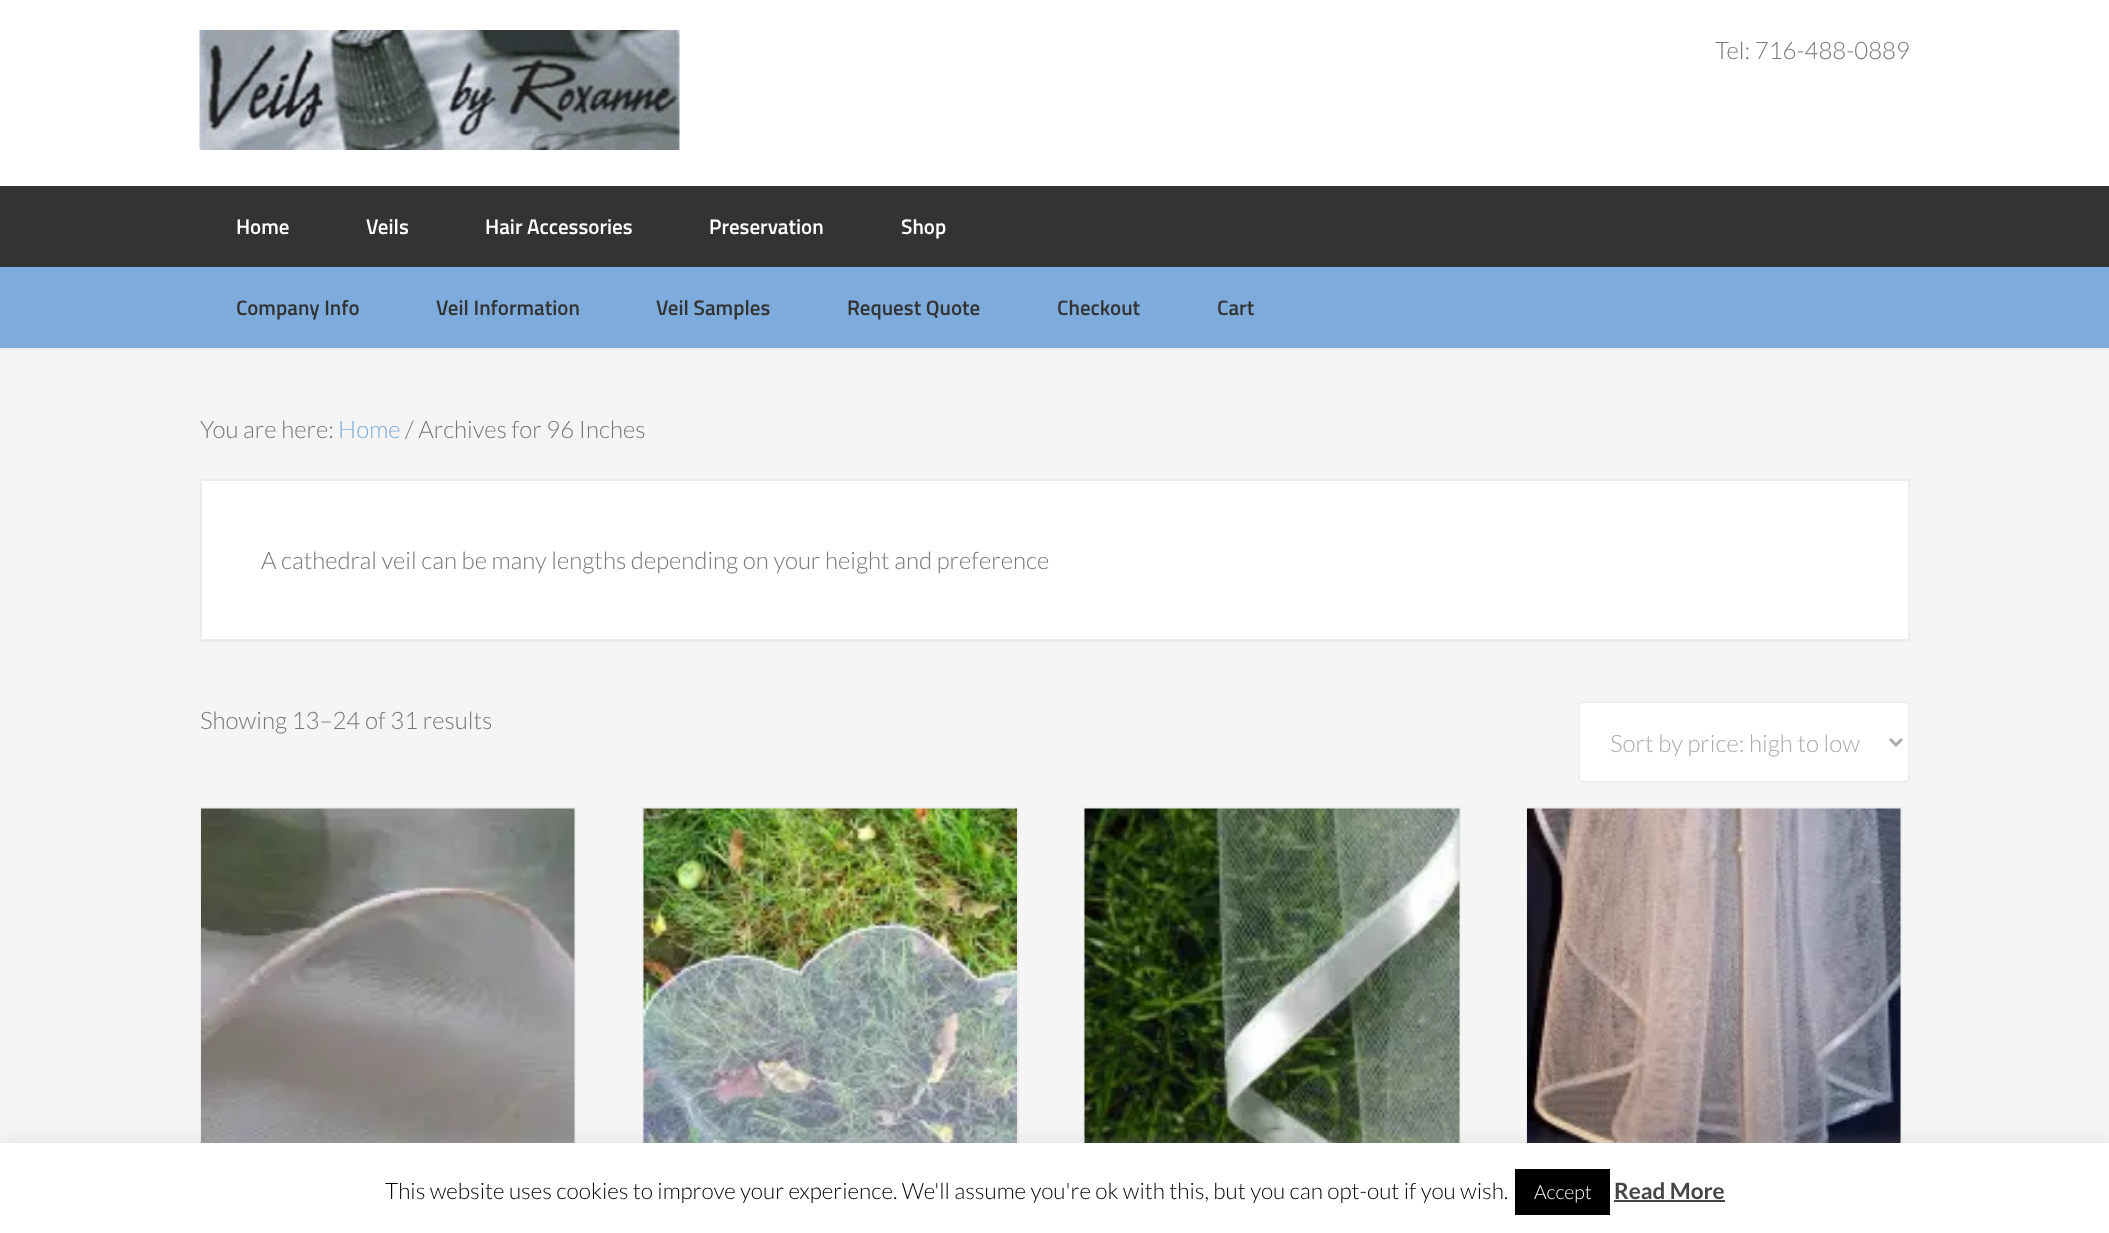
(async () => {
const canvas = document.querySelector("canvas")
canvas.width = 2109
canvas.height = 1233
const c = canvas.getContext("2d")
c.miterLimit = 4
c.fontKerning = "normal"
function T(s,x,y){c.fillText(s,x,y)}
function R(x,y,w,h){c.fillRect(x,y,w,h)}
async function I(src,x,y,w,h){const img=new Image();img.src=src;await img.decode();c.drawImage(img,x,y,w,h)}
let path
c.fillStyle="#fff"
R(0,0,2109,1233)
await I("1.png",199,30,481,120)
c.font="300 24px Lato"
c.fillStyle="#777"
T("Tel: 716-488-0889",1715,59)
c.fillStyle="#333"
R(0,186,2109,81)
c.font="600 21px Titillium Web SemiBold"
c.fillStyle="#fff"
T("Home",236,234)
T("Veils",366,234)
T("Hair Accessories",485,234)
T("Preservation",709,234)
T("Shop",901,234)
c.fillStyle="#7dabdc"
R(0,267,2109,81)
c.fillStyle="#333"
T("Company Info",236,315)
T("Veil Information",436,315)
T("Veil Samples",656,315)
T("Request Quote",847,315)
T("Checkout",1057,315)
T("Cart",1217,315)
c.fillStyle="#f5f5f5"
R(0,350,2109,793)
c.fillStyle="#ececec"
R(0,348,2109,2)
c.font="300 24px Lato"
c.fillStyle="#777"
T("You are here:",200,438)
c.fillStyle="#7dabdc"
T("Home",338,438)
c.fillStyle="#777"
T("/ Archives for 96 Inches",405,438)
c.fillStyle="#ececec"
path = new Path2D("M200 640v2h1710v-162v160z")
c.fill(path)
c.fillStyle="#fff"
c.beginPath()
c.rect(201,480,1708,160)
c.fill()
c.strokeStyle="#ececec"
c.lineWidth=2
c.stroke()
c.fillStyle="#777"
T("A cathedral veil can be many lengths depending on your height and preference",261,569)
T("Showing 13–24 of 31 results",200,729)
c.fillStyle="#fff"
c.beginPath()
c.roundRect(1579,702,330,80,4)
c.fill()
c.stroke()
path = new Path2D("M1890 739l6 6l6-6")
c.strokeStyle="#aaa"
c.lineWidth=3
c.stroke(path)
c.fillStyle="#aaa"
T("Sort by price: high to low",1610,752)
c.strokeStyle="#ececec"
c.lineWidth=2
c.strokeRect(201,808,374,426)
await I("2.png",201,808,374,335)
c.strokeRect(643,808,375,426)
await I("3.png",643,808,374,335)
c.strokeRect(1084,808,376,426)
await I("4.png",1084,808,376,335)
c.strokeRect(1527,808,374,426)
await I("5.png",1527,808,374,335)
c.fillStyle="#acabab4d"
c.filter="blur(7.5px)"
c.beginPath()
c.rect(0,1142,2109,90)
c.fill()
c.filter="none"
c.fillStyle="#fff"
R(0,1143,2109,90)
c.font="300 22.5px Lato"
c.fillStyle="#000"
T("This website uses cookies to improve your experience. We'll assume you're ok with this, but you can opt-out if you wish.",385,1199)
R(1515,1169,95,46)
c.font="300 19.5px Lato"
c.fillStyle="#fff"
T("Accept",1534,1199)
c.font="bold 22.5px Lato"
c.fillStyle="#444"
T("Read More",1614,1199)
R(1614,1200,111,2)
})()
